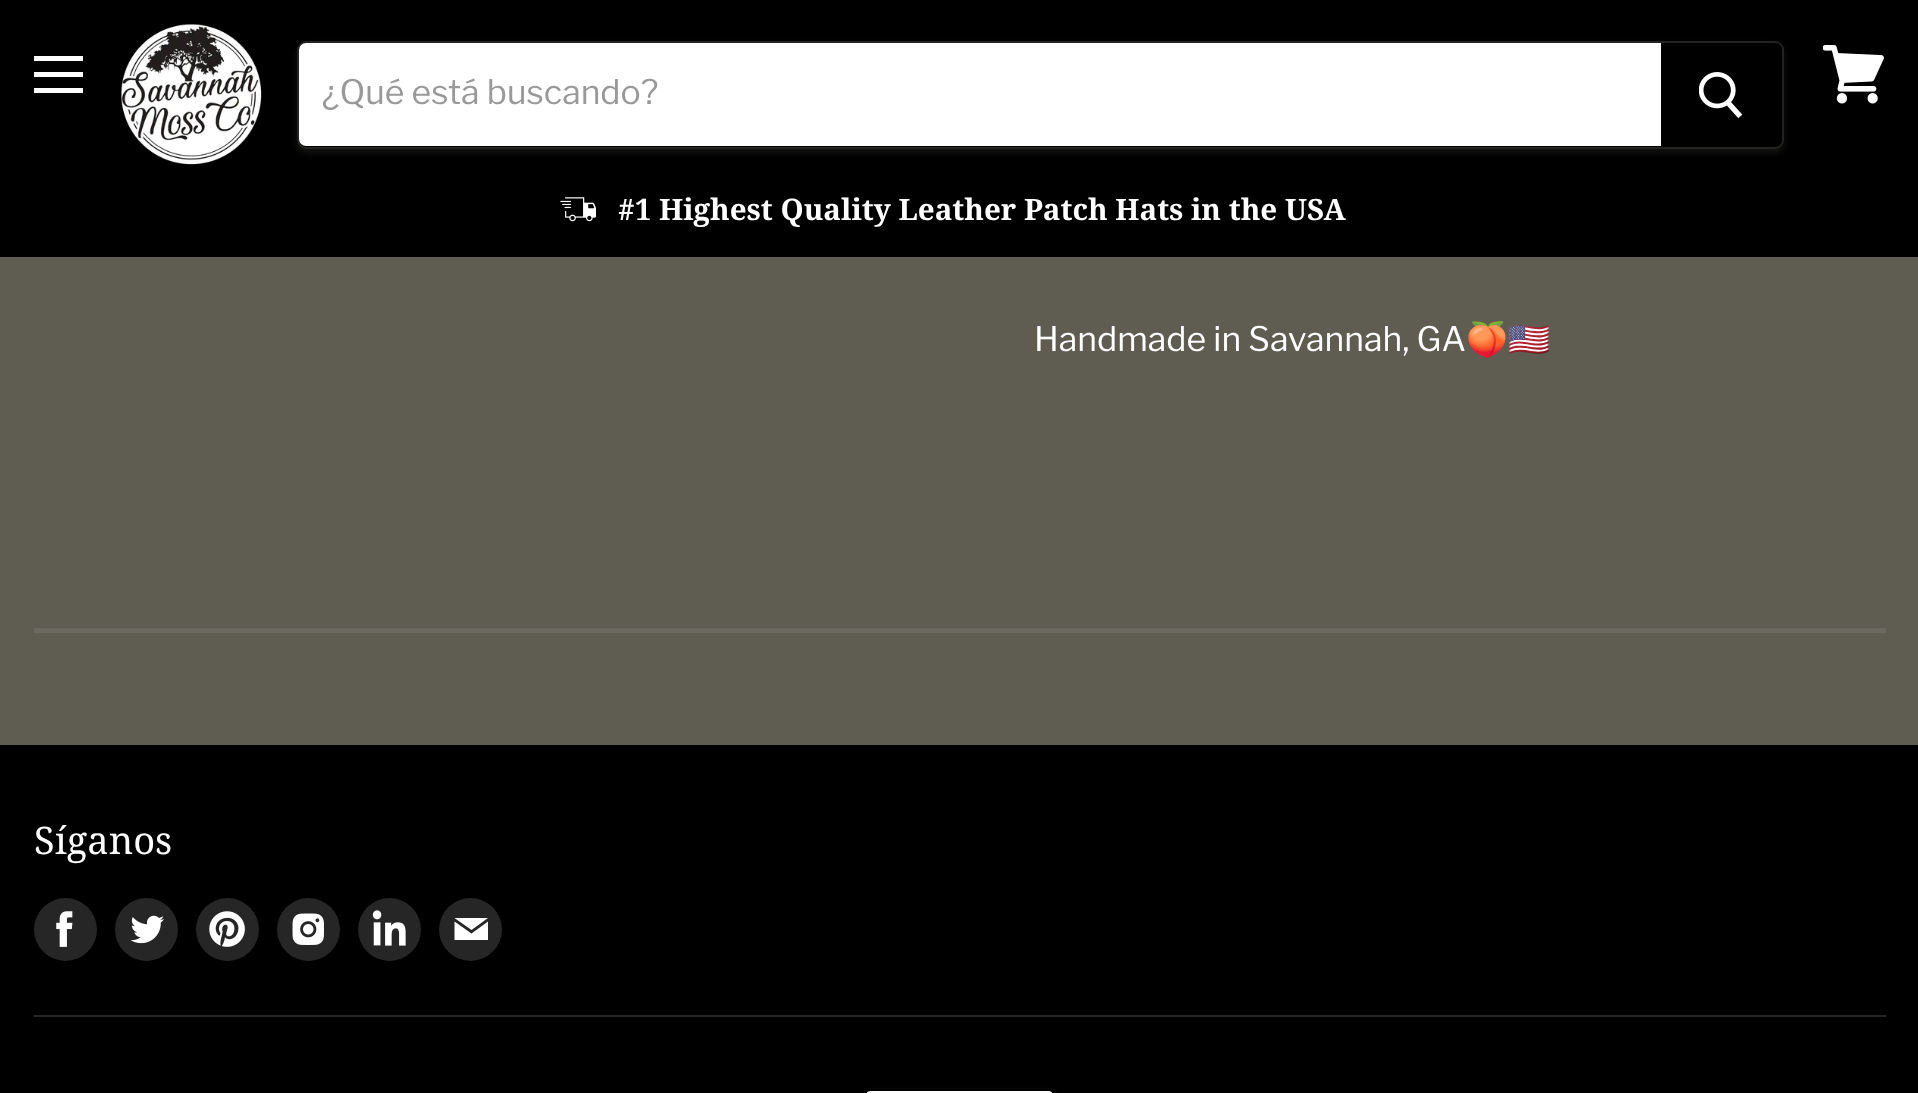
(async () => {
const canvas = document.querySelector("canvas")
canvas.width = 1918
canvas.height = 1093
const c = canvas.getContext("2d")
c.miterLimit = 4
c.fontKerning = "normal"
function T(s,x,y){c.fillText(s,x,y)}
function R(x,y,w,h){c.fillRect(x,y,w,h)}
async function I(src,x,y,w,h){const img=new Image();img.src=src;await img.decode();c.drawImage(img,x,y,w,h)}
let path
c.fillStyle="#5f5c51"
R(0,0,1918,1093)
c.fillStyle="#000"
R(0,0,1918,257)
c.fillStyle="#fff"
R(34,56,49,5)
R(34,72,49,5)
R(34,88,49,5)
await I("1.png",121,24,141,141)
c.save()
path = new Path2D("M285 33h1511v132h-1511zm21 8h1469c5 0 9 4 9 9v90c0 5-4 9-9 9h-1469c-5 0-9-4-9-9v-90c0-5 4-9 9-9z")
c.clip(path,"evenodd")
c.fillStyle="#afaea81c"
c.filter="blur(3.5px)"
c.beginPath()
c.roundRect(297,45,1487,108,9)
c.fill()
c.filter="none"
c.restore()
c.beginPath()
c.roundRect(298,42,1485,106,8)
c.strokeStyle="#afaea833"
c.lineWidth=2
c.stroke()
c.beginPath()
c.roundRect(299,43,1362,103,[7,0,0,7])
c.fill()
c.font="33.75px Libre Franklin"
c.fillStyle="#999"
T("¿Qué está buscando?",322,104)
c.fillStyle="#000"
c.beginPath()
c.roundRect(1662,44,119,101,[0,6,6,0])
c.fill()
c.strokeStyle="#000"
c.stroke()
await I("2.png",1699,72,44,47)
await I("3.png",560,197,36,25)
c.font="bold 29.5px Noto Serif"
c.fillStyle="#fff"
T("#1 Highest Quality Leather Patch Hats in the USA",618,220)
await I("4.png",1823,45,61,59)
c.font="33.75px Libre Franklin"
T("Handmade in Savannah, GA",1034,351)
c.font="33.75px Noto Color Emoji"
T("🍑🇺🇸",1466,351)
c.fillStyle="#afaea829"
R(34,628,1852,5)
c.fillStyle="#000"
R(0,745,1918,348)
c.fillStyle="#262626"
R(34,1015,1852,2)
c.font="38px Noto Serif"
c.fillStyle="#fff"
T("Síganos",34,854)
c.fillStyle="#262626"
c.beginPath()
c.arc(65.5,929.5,31.5,0,7)
c.fill()
await I("5.png",56,911,17,36)
c.beginPath()
c.arc(146.5,929.5,31.5,0,7)
c.fill()
await I("6.png",130,915,34,29)
c.beginPath()
c.arc(227.5,929.5,31.5,0,7)
c.fill()
await I("7.png",209,911,36,36)
c.beginPath()
c.arc(308.5,929.5,31.5,0,7)
c.fill()
await I("8.png",292,913,32,32)
c.beginPath()
c.arc(389.5,929.5,31.5,0,7)
c.fill()
await I("9.png",372,910,34,36)
c.beginPath()
c.arc(470.5,929.5,31.5,0,7)
c.fill()
c.fillStyle="#fff"
path = new Path2D("M488 918h-33.5l17 12zm-16.5 15.5l-17-12v18.5h33.5v-18.5z")
c.fill(path,"evenodd")
c.fillStyle="#ffffff26"
c.filter="blur(2px)"
c.beginPath()
c.roundRect(864,1091,191,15,7)
c.fill()
c.filter="none"
c.fillStyle="#fff"
c.beginPath()
c.roundRect(865,1090,189,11,6)
c.fill()
c.stroke()
})()
